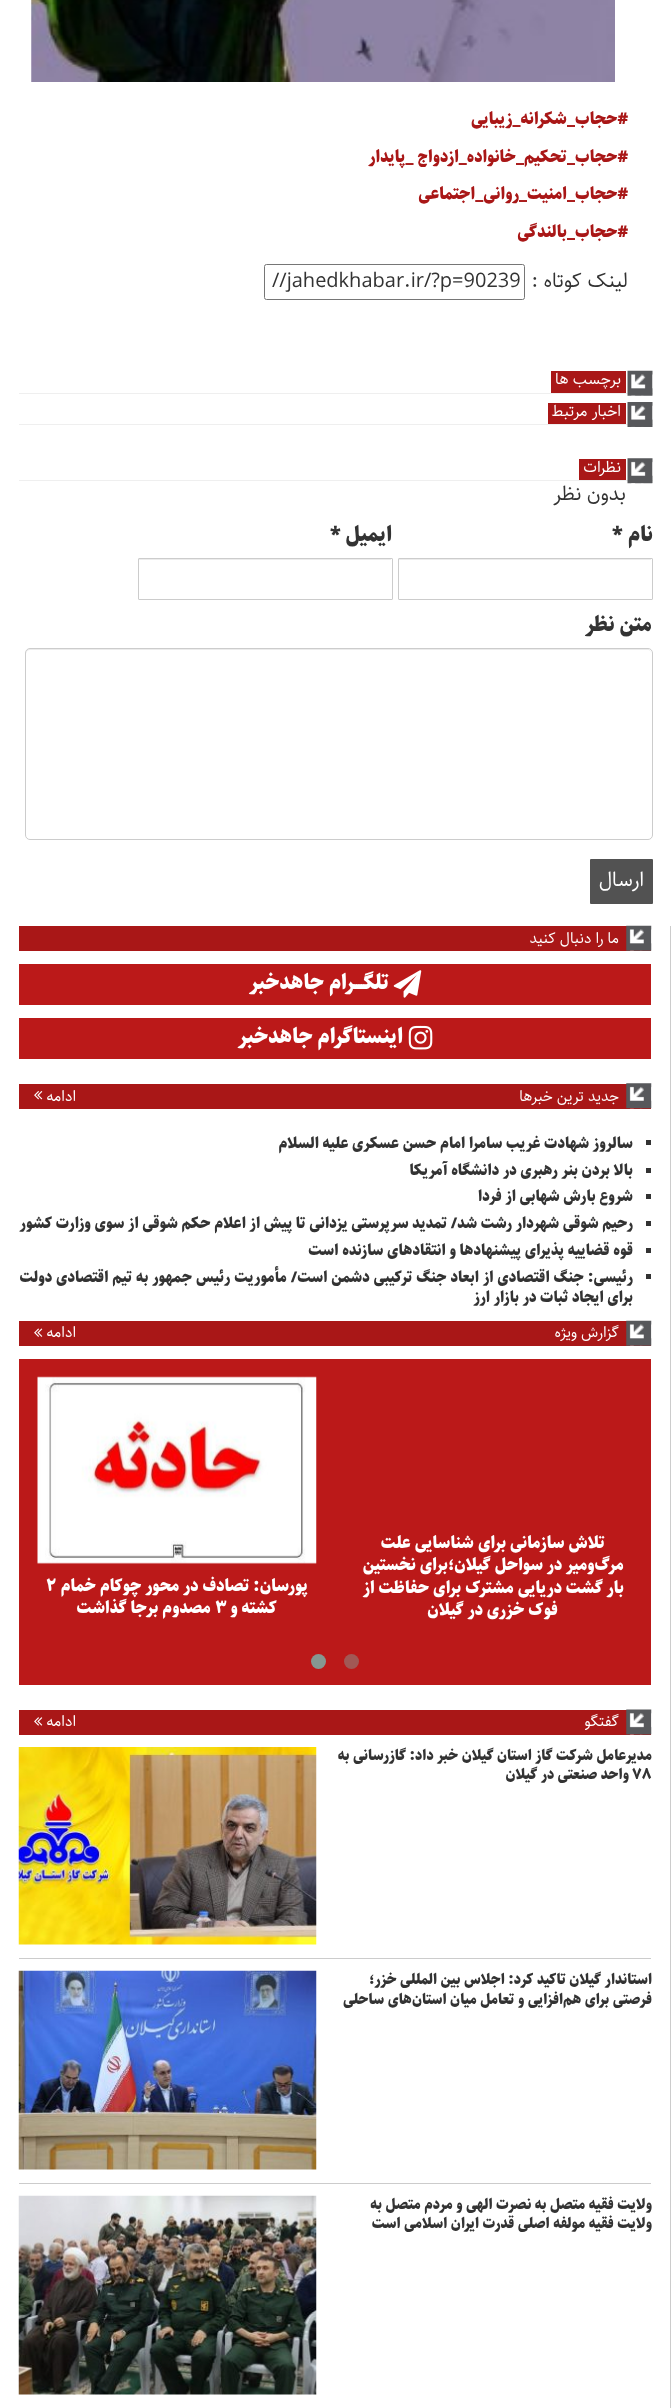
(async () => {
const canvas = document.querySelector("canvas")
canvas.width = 671
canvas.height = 2408
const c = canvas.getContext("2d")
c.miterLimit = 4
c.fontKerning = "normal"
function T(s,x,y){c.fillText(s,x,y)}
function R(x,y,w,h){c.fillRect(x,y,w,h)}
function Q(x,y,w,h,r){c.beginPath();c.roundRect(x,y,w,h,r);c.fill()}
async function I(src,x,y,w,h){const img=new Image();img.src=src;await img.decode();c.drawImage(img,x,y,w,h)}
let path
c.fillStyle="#fff"
R(0,0,671,2408)
await I("1.png",31,0,584,82)
c.direction="rtl"
c.font="900 16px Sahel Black"
c.fillStyle="#a91717"
T("#حجاب_شکرانه_زیبایی",628,124)
T("#حجاب_تحکیم_خانواده_ازدواج _پایدار",628,162)
T("#حجاب_امنیت_روانی_اجتماعی",628,199)
T("#حجاب_بالندگی",628,237)
c.font="20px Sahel"
c.fillStyle="#333"
T("لینک کوتاه :",628,287)
c.beginPath()
c.roundRect(264.5,264.5,260,35,2)
c.strokeStyle="#767676"
c.stroke()
c.direction="ltr"
T("//jahedkhabar.ir/?p=90239",272,287)
c.fillStyle="#efefef"
R(19,393,634,1)
await I("2.png",627,370,26,26)
c.fillStyle="#a91717"
R(551,371,75,22)
c.direction="rtl"
c.font="15.5px Sahel"
c.fillStyle="#fff"
T("برچسب ها",621,384)
c.fillStyle="#efefef"
R(19,424,634,1)
await I("3.png",627,402,26,25)
c.fillStyle="#a91717"
R(548,403,78,21)
c.fillStyle="#fff"
T("اخبار مرتبط",621,416)
c.fillStyle="#efefef"
R(19,480,634,1)
await I("4.png",627,458,26,26)
c.fillStyle="#a91717"
R(579,459,47,21)
c.fillStyle="#fff"
T("نظرات",621,472)
c.font="20px Sahel"
c.fillStyle="#333"
T("بدون نظر",626,500)
c.font="900 20px Sahel Black"
T("نام",653,541)
c.direction="ltr"
T("*",612,541)
c.fillStyle="#ececec"
R(399,559,252,1)
c.beginPath()
c.roundRect(398.5,558.5,254,41,.5)
c.strokeStyle="#ccc"
c.stroke()
c.direction="rtl"
c.fillStyle="#333"
T("ایمیل",392,541)
c.direction="ltr"
T("*",330,541)
c.fillStyle="#ececec"
R(139,559,252,1)
c.beginPath()
c.roundRect(138.5,558.5,254,41,.5)
c.stroke()
c.direction="rtl"
c.fillStyle="#333"
T("متن نظر",652,631)
c.fillStyle="#ececec"
path = new Path2D("M30 650h618c2 0 3 2 3 4c0-3-1-5-4-5h-617c-3 0-4 2-4 5c0-2 2-4 4-4z")
c.fill(path)
c.beginPath()
c.roundRect(25.5,648.5,627,191,4.5)
c.stroke()
c.fillStyle="#525252"
Q(590,859,63,45,1)
c.font="20px Sahel"
c.fillStyle="#fff"
T("ارسال",644,886)
c.fillStyle="#ccc"
R(670,926,1,1482)
c.fillStyle="#a91717"
R(19,926,632,25)
await I("5.png",626,925,26,26)
c.font="15px Sahel"
c.fillStyle="#fff"
T("ما را دنبال کنید",619,943)
c.fillStyle="#bb1919"
R(19,964,632,41)
await I("6.png",393,970,29,28)
c.font="900 20px Sahel Black"
c.fillStyle="#fff"
T("تلگــــرام جاهد‌خبر",389,989)
c.fillStyle="#bb1919"
R(19,1018,632,41)
await I("7.png",408,1025,25,25)
c.fillStyle="#fff"
T("اینستاگرام جاهد‌خبر",403,1043)
c.fillStyle="#a91717"
R(19,1084,632,25)
await I("8.png",626,1083,26,26)
c.font="15px Sahel"
c.fillStyle="#fff"
T("جدید ترین خبرها",619,1101)
T("ادامه",76,1101)
await I("9.png",34,1091,9,9)
c.fillStyle="#333"
R(646,1140,5,5)
c.font="900 14.6px Sahel Black"
T("سالروز شهادت غریب سامرا امام حسن عسکری علیه السلام",633,1148)
R(646,1168,5,5)
T("بالا بردن بنر رهبری در دانشگاه آمریکا",633,1175)
R(646,1194,5,5)
T("شروع بارش شهابی از فردا",633,1201)
R(646,1221,5,5)
T("رحیم شوقی شهردار رشت شد/ تمدید سرپرستی یزدانی تا پیش از اعلام حکم شوقی از سوی وزارت کشور",633,1228)
R(646,1248,5,5)
T("قوه قضاییه پذیرای پیشنهادها و انتقادهای سازنده است",633,1255)
R(646,1274,5,5)
c.wordSpacing="0.25px"
T("رئیسی: جنگ اقتصادی از ابعاد جنگ ترکیبی دشمن است/ مأموریت رئیس جمهور به تیم اقتصادی دولت",633,1282)
c.wordSpacing="0px"
T("برای ایجاد ثبات در بازار ارز",633,1302)
c.fillStyle="#a91717"
R(19,1321,632,25)
await I("5.png",626,1320,26,26)
c.font="15px Sahel"
c.fillStyle="#fff"
T("گزارش ویژه",619,1337)
T("ادامه",76,1337)
await I("10.png",34,1328,9,9)
c.fillStyle="#bb1919"
R(19,1359,632,326)
c.font="900 16px Sahel Black"
c.fillStyle="#fff"
T("تلاش سازمانی برای شناسایی علت",605,1548)
T("مرگ‌ومیر در سواحل گیلان؛برای نخستین",624,1570)
T("بار گشت دریایی مشترک برای حفاظت از",624,1593)
T("فوک خزری در گیلان",558,1615)
await I("11.png",37,1376,280,188)
T("پورسان: تصادف در محور چوکام خمام",308,1591)
c.direction="ltr"
T("۲",46,1591)
c.direction="rtl"
T("کشته و",277,1613)
c.direction="ltr"
T("۳",215,1613)
c.direction="rtl"
T("مصدوم برجا گذاشت",211,1613)
c.fillStyle="#a15855"
c.beginPath()
c.arc(351.5,1661.5,7.5,0,7)
c.fill()
c.fillStyle="#869791"
c.beginPath()
c.arc(318.5,1661.5,7.5,0,7)
c.fill()
c.fillStyle="#a91717"
R(19,1710,632,25)
await I("12.png",626,1709,26,26)
c.font="15px Sahel"
c.fillStyle="#fff"
T("گفتگو",619,1726)
T("ادامه",76,1726)
await I("13.png",34,1717,9,9)
c.fillStyle="#ccc"
R(19,1958,632,1)
c.font="900 14px Sahel Black"
c.fillStyle="#333"
T("مدیرعامل شرکت گاز استان گیلان خبر داد: گازرسانی به",652,1760)
c.direction="ltr"
T("۷۸",632,1779)
c.direction="rtl"
T("واحد صنعتی در گیلان",629,1779)
await I("14.png",18,1747,299,198)
c.fillStyle="#ccc"
R(19,2183,632,1)
c.fillStyle="#333"
T("استاندار گیلان تاکید کرد: اجلاس بین المللی خزر؛",652,1984)
T("فرصتی برای هم‌افزایی و تعامل میان استان‌های ساحلی",652,2004)
await I("15.png",18,1970,299,200)
T("ولایت فقیه متصل به نصرت الهی و مردم متصل به",652,2209)
T("ولایت فقیه مولفه اصلی قدرت ایران اسلامی است",652,2228)
await I("16.png",18,2195,299,200)
})()
